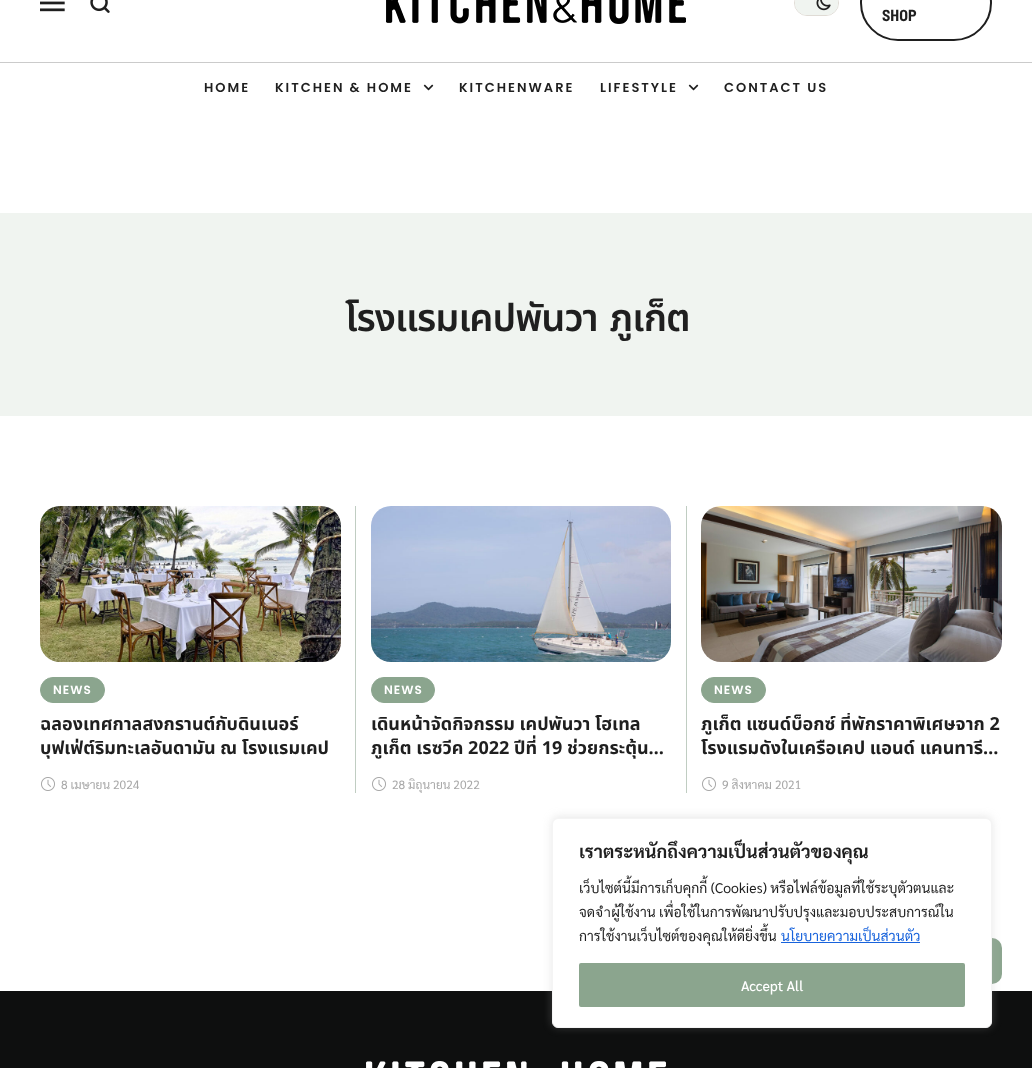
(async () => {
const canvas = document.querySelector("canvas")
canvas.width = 1032
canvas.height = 1068
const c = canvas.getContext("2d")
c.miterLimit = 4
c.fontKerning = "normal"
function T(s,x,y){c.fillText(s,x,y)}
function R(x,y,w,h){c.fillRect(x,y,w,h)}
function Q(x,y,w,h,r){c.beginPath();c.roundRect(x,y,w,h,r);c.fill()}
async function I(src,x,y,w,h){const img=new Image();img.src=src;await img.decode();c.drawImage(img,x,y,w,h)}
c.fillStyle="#fff"
R(0,0,1032,1068)
await I("1.png",40,1,25,11)
await I("2.png",90,0,20,13)
await I("3.png",386,0,300,24)
c.beginPath()
c.roundRect(794.5,-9.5,44,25,12.5)
c.strokeStyle="#dfdbd5"
c.stroke()
c.fillStyle="#f0f4f0"
Q(795,-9,43,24,12)
await I("4.png",816,0,15,11)
c.beginPath()
c.roundRect(861,-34,130,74,37)
c.strokeStyle="#1f1f1f"
c.lineWidth=2
c.stroke()
c.font="bold 16px Barlow Semi Condensed"
c.fillStyle="#1f1f1f"
T("SHOP",882,21)
c.fillStyle="#8da690"
Q(956,938,46,46,10)
c.fillStyle="#cbcbcb"
R(0,62,1032,1)
c.letterSpacing="2px"
c.font="600 13px Poppins"
c.fillStyle="#1f1f1f"
T("HOME",204,92)
T("KITCHEN & HOME",275,92)
await I("5.png",423,84,11,7)
T("KITCHENWARE",459,92)
T("LIFESTYLE",600,92)
await I("5.png",688,84,11,7)
T("CONTACT US",724,92)
c.fillStyle="#f0f4f0"
R(0,213,1032,203)
c.letterSpacing="-1px"
c.wordSpacing="3px"
c.font="600 38px Noto Sans Thai"
c.fillStyle="#1f1f1f"
T("โรงแรมเคปพันวา ภูเก็ต",345,331)
await I("6.png",40,506,301,156)
c.fillStyle="#8ba58e"
c.beginPath()
c.roundRect(40.5,677.5,64,25,12.5)
c.fill()
c.strokeStyle="#8ba58e"
c.lineWidth=1
c.stroke()
c.letterSpacing="1px"
c.wordSpacing="0px"
c.font="600 12px Poppins"
c.fillStyle="#fff"
T("NEWS",53,694)
c.letterSpacing="0px"
c.font="bold 18px Noto Sans Thai"
c.fillStyle="#1f1f1f"
T("ฉลองเทศกาลสงกรานต์กับดินเนอร์",40,730)
c.save()
c.beginPath()
c.rect(40,713,301,47)
c.clip()
T("บุฟเฟ่ต์ริมทะเลอันดามัน ณ โรงแรมเคป",40,754)
c.restore()
await I("7.png",41,777,14,14)
c.font="12px Sarabun"
c.fillStyle="#a8a8a8"
T("8 เมษายน 2024",61,789)
c.fillStyle="#c0cdc2"
R(355,506,1,287)
R(686,506,1,287)
await I("8.png",371,506,300,156)
c.fillStyle="#8ba58e"
c.beginPath()
c.roundRect(371.5,677.5,63,25,12.5)
c.fill()
c.stroke()
c.letterSpacing="1px"
c.font="600 12px Poppins"
c.fillStyle="#fff"
T("NEWS",384,694)
c.save()
c.beginPath()
c.rect(371,713,300,47)
c.clip()
c.letterSpacing="0px"
c.font="bold 18px Noto Sans Thai"
c.fillStyle="#1f1f1f"
T("เดินหน้าจัดกิจกรรม เคปพันวา โฮเทล",371,730)
T("ภูเก็ต เรซวีค 2022 ปีที่ 19 ช่วยกระตุ้น…",371,754)
c.restore()
await I("7.png",372,777,14,14)
c.letterSpacing="0px"
c.font="12px Sarabun"
c.fillStyle="#a8a8a8"
T("28 มิถุนายน 2022",392,789)
await I("9.png",701,506,301,156)
c.fillStyle="#8ba58e"
c.beginPath()
c.roundRect(701.5,677.5,64,25,12.5)
c.fill()
c.stroke()
c.letterSpacing="1px"
c.font="600 12px Poppins"
c.fillStyle="#fff"
T("NEWS",714,694)
c.save()
c.beginPath()
c.rect(701,713,301,47)
c.clip()
c.letterSpacing="0px"
c.font="bold 18px Noto Sans Thai"
c.fillStyle="#1f1f1f"
T("ภูเก็ต แซนด์บ็อกซ์ ที่พักราคาพิเศษจาก 2",701,730)
c.restore()
c.letterSpacing="0px"
c.font="bold 18px Noto Sans Thai"
c.fillStyle="#1f1f1f"
T("โรงแรมดังในเครือเคป แอนด์ แคนทารี…",701,754)
await I("7.png",702,777,14,14)
c.font="12px Sarabun"
c.fillStyle="#a8a8a8"
T("9 สิงหาคม 2021",722,789)
c.fillStyle="#0e0f0f"
R(0,991,1032,77)
c.fillStyle="#acabab4d"
c.filter="blur(5px)"
c.beginPath()
c.roundRect(552,817,440,210,6)
c.fill()
c.filter="none"
c.fillStyle="#fff"
c.beginPath()
c.roundRect(552.5,818.5,439,209,5.5)
c.fill()
c.strokeStyle="#f4f4f4"
c.stroke()
c.font="bold 18px Sarabun"
c.fillStyle="#1f1f1f"
T("เราตระหนักถึงความเป็นส่วนตัวของคุณ",579,858)
c.font="14px Sarabun"
T("เว็บไซต์นี้มีการเก็บคุกกี้ (Cookies) หรือไฟล์ข้อมูลที่ใช้ระบุตัวตนและ",579,893)
T("จดจำผู้ใช้งาน เพื่อใช้ในการพัฒนาปรับปรุงและมอบประสบการณ์ใน",579,917)
T("การใช้งานเว็บไซต์ของคุณให้ดียิ่งขึ้น",579,941)
c.fillStyle="#1863dc"
T("นโยบายความเป็นส่วนตัว",781,941)
R(781,942,139,1)
c.fillStyle="#8ba58e"
c.beginPath()
c.roundRect(580,964,384,42,1)
c.fill()
c.strokeStyle="#8ba58e"
c.lineWidth=2
c.stroke()
c.font="500 14px Sarabun"
c.fillStyle="#fff"
T("Accept All",741,991)
await I("10.png",366,1061,300,7)
})()
